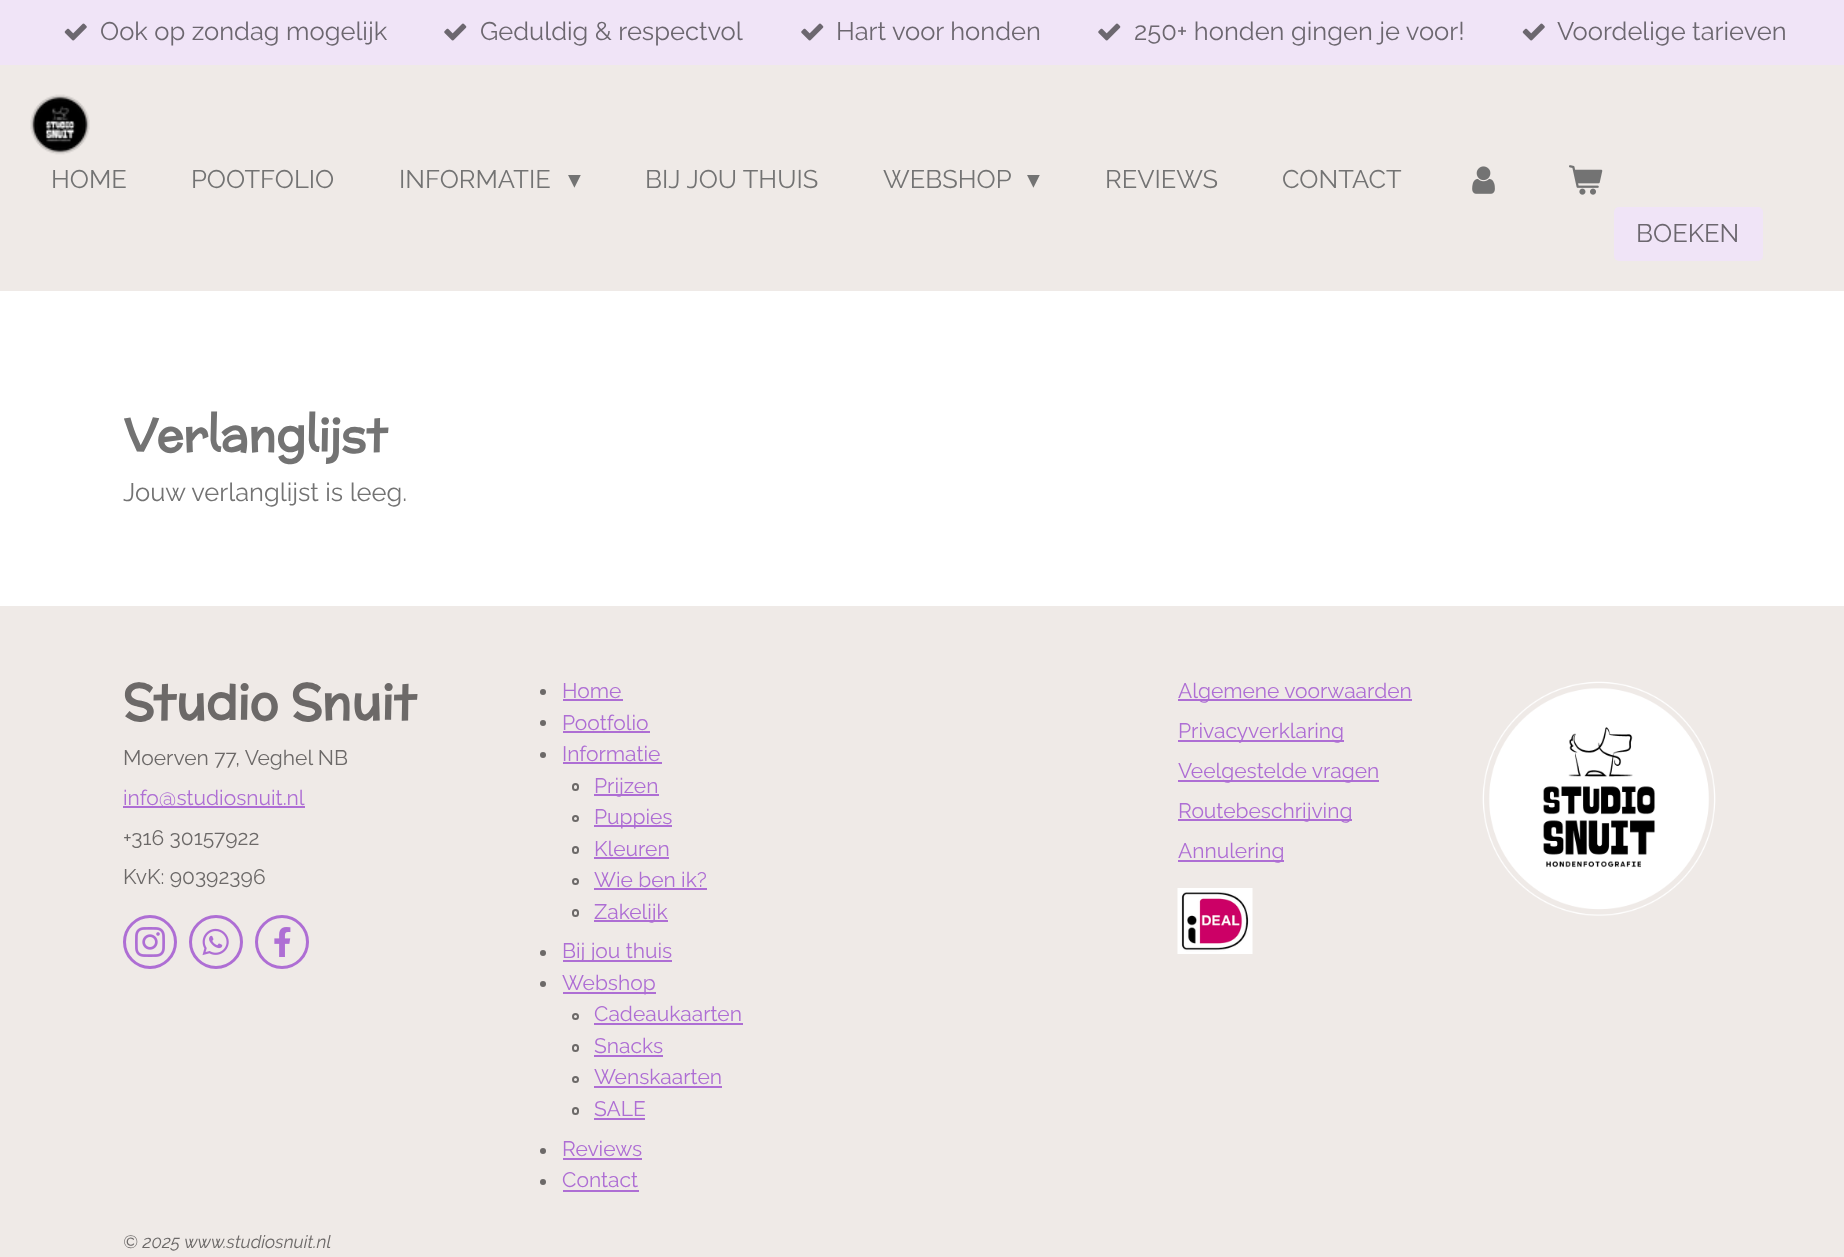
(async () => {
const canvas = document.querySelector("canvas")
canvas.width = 1844
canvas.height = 1257
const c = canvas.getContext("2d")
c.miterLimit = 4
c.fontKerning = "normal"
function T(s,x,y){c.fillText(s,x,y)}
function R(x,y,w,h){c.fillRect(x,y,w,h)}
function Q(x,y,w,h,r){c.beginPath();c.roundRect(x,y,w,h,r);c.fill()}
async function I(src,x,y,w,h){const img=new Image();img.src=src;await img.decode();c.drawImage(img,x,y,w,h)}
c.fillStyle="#efeae7"
R(0,0,1844,1257)
c.fillStyle="#f0e4f7"
R(0,0,1844,65)
await I("1.png",64,23,23,18)
c.font="25.5px Raleway"
c.fillStyle="#6c676f"
T("Ook op zondag mogelijk",100,40)
await I("2.png",444,23,23,18)
T("Geduldig & respectvol",480,40)
await I("2.png",801,23,23,18)
T("Hart voor honden",836,40)
await I("2.png",1098,23,23,18)
T("250+ honden gingen je voor!",1134,40)
await I("1.png",1522,23,23,18)
T("Voordelige tarieven",1557,40)
await I("3.png",30,94,60,61)
c.fillStyle="#737373"
T("HOME",51,188)
T("POOTFOLIO",191,188)
T("INFORMATIE",399,188)
c.font="25.5px DejaVu Sans"
T("▾",568,188)
c.font="25.5px Raleway"
T("BIJ JOU THUIS",645,188)
T("WEBSHOP",883,188)
c.font="25.5px DejaVu Sans"
T("▾",1027,188)
c.font="25.5px Raleway"
T("REVIEWS",1105,188)
T("CONTACT",1282,188)
await I("4.png",1472,166,23,28)
await I("5.png",1569,165,34,30)
c.fillStyle="#f0e4f7"
Q(1614,207,149,54,5)
c.fillStyle="#6c676f"
T("BOEKEN",1636,242)
c.fillStyle="#fff"
R(0,291,1844,315)
c.font="bold 45px McLaren"
c.fillStyle="#737373"
T("Verlanglijst",123,451)
c.font="25.5px Raleway"
T("Jouw verlanglijst is leeg.",123,501)
c.font="bold 48px McLaren"
c.fillStyle="#6c6968"
T("Studio Snuit",123,719)
c.font="21px Raleway"
T("Moerven 77, Veghel NB",123,765)
c.fillStyle="#ae6ed4"
R(123,806,182,2)
T("info@studiosnuit.nl",123,805)
c.fillStyle="#6c6968"
T("+316 30157922",123,845)
T("KvK: 90392396",123,884)
c.beginPath()
c.arc(150,942,25.5,0,7)
c.strokeStyle="#ae6ed4"
c.lineWidth=3
c.stroke()
await I("6.png",135,927,30,30)
c.beginPath()
c.arc(216,942,25.5,0,7)
c.stroke()
await I("7.png",202,928,27,28)
c.beginPath()
c.arc(282,942,25.5,0,7)
c.stroke()
await I("8.png",274,927,17,30)
c.beginPath()
c.arc(543,692,3,0,7)
c.fill()
c.fillStyle="#ae6ed4"
T("Home",562,698)
R(563,699,60,2)
c.fillStyle="#6c6968"
c.beginPath()
c.arc(543,723,3,0,7)
c.fill()
c.fillStyle="#ae6ed4"
T("Pootfolio",562,730)
R(563,731,87,2)
c.fillStyle="#6c6968"
c.beginPath()
c.arc(543,755,3,0,7)
c.fill()
c.fillStyle="#ae6ed4"
T("Informatie",562,761)
R(563,762,99,2)
c.beginPath()
c.roundRect(573,784,5,6,2.5)
c.strokeStyle="#6c6968"
c.lineWidth=2
c.stroke()
R(594,794,65,2)
T("Prijzen",594,793)
c.beginPath()
c.arc(575.5,818.5,2.5,0,7)
c.stroke()
R(594,825,78,2)
T("Puppies",594,824)
c.beginPath()
c.roundRect(573,847,5,6,2.5)
c.stroke()
T("Kleuren",594,856)
R(594,857,75,2)
c.beginPath()
c.arc(575.5,881.5,2.5,0,7)
c.stroke()
T("Wie ben ik?",594,887)
R(594,888,113,2)
c.beginPath()
c.roundRect(573,910,5,6,2.5)
c.stroke()
R(594,920,74,2)
T("Zakelijk",594,919)
c.fillStyle="#6c6968"
c.beginPath()
c.arc(543,953,3,0,7)
c.fill()
c.fillStyle="#ae6ed4"
R(563,960,109,2)
T("Bij jou thuis",562,958)
c.fillStyle="#6c6968"
c.beginPath()
c.arc(543,984,3,0,7)
c.fill()
c.fillStyle="#ae6ed4"
R(563,992,93,2)
T("Webshop",562,990)
c.beginPath()
c.arc(575.5,1016.5,2.5,0,7)
c.stroke()
T("Cadeaukaarten",594,1021)
R(594,1023,149,2)
c.beginPath()
c.roundRect(573,1045,5,6,2.5)
c.stroke()
T("Snacks",594,1053)
R(594,1055,69,2)
c.beginPath()
c.arc(575.5,1079.5,2.5,0,7)
c.stroke()
T("Wenskaarten",594,1084)
R(594,1086,128,2)
c.beginPath()
c.roundRect(573,1108,5,6,2.5)
c.stroke()
T("SALE",594,1116)
R(594,1118,51,2)
c.fillStyle="#6c6968"
c.beginPath()
c.arc(543,1151,3,0,7)
c.fill()
c.fillStyle="#ae6ed4"
T("Reviews",562,1156)
R(563,1158,79,2)
c.fillStyle="#6c6968"
c.beginPath()
c.arc(543,1182,3,0,7)
c.fill()
c.fillStyle="#ae6ed4"
T("Contact",562,1187)
R(563,1190,76,2)
R(1178,699,234,2)
T("Algemene voorwaarden",1178,698)
R(1178,740,166,2)
T("Privacyverklaring",1178,738)
R(1178,780,201,2)
T("Veelgestelde vragen",1178,778)
R(1178,819,174,2)
T("Routebeschrijving",1178,818)
R(1178,860,106,2)
T("Annulering",1178,858)
await I("9.png",1177,888,76,66)
await I("10.png",1482,681,234,235)
c.font="italic 17.8px Raleway"
c.fillStyle="#6c6968"
T("© 2025 www.studiosnuit.nl",123,1248)
})()
